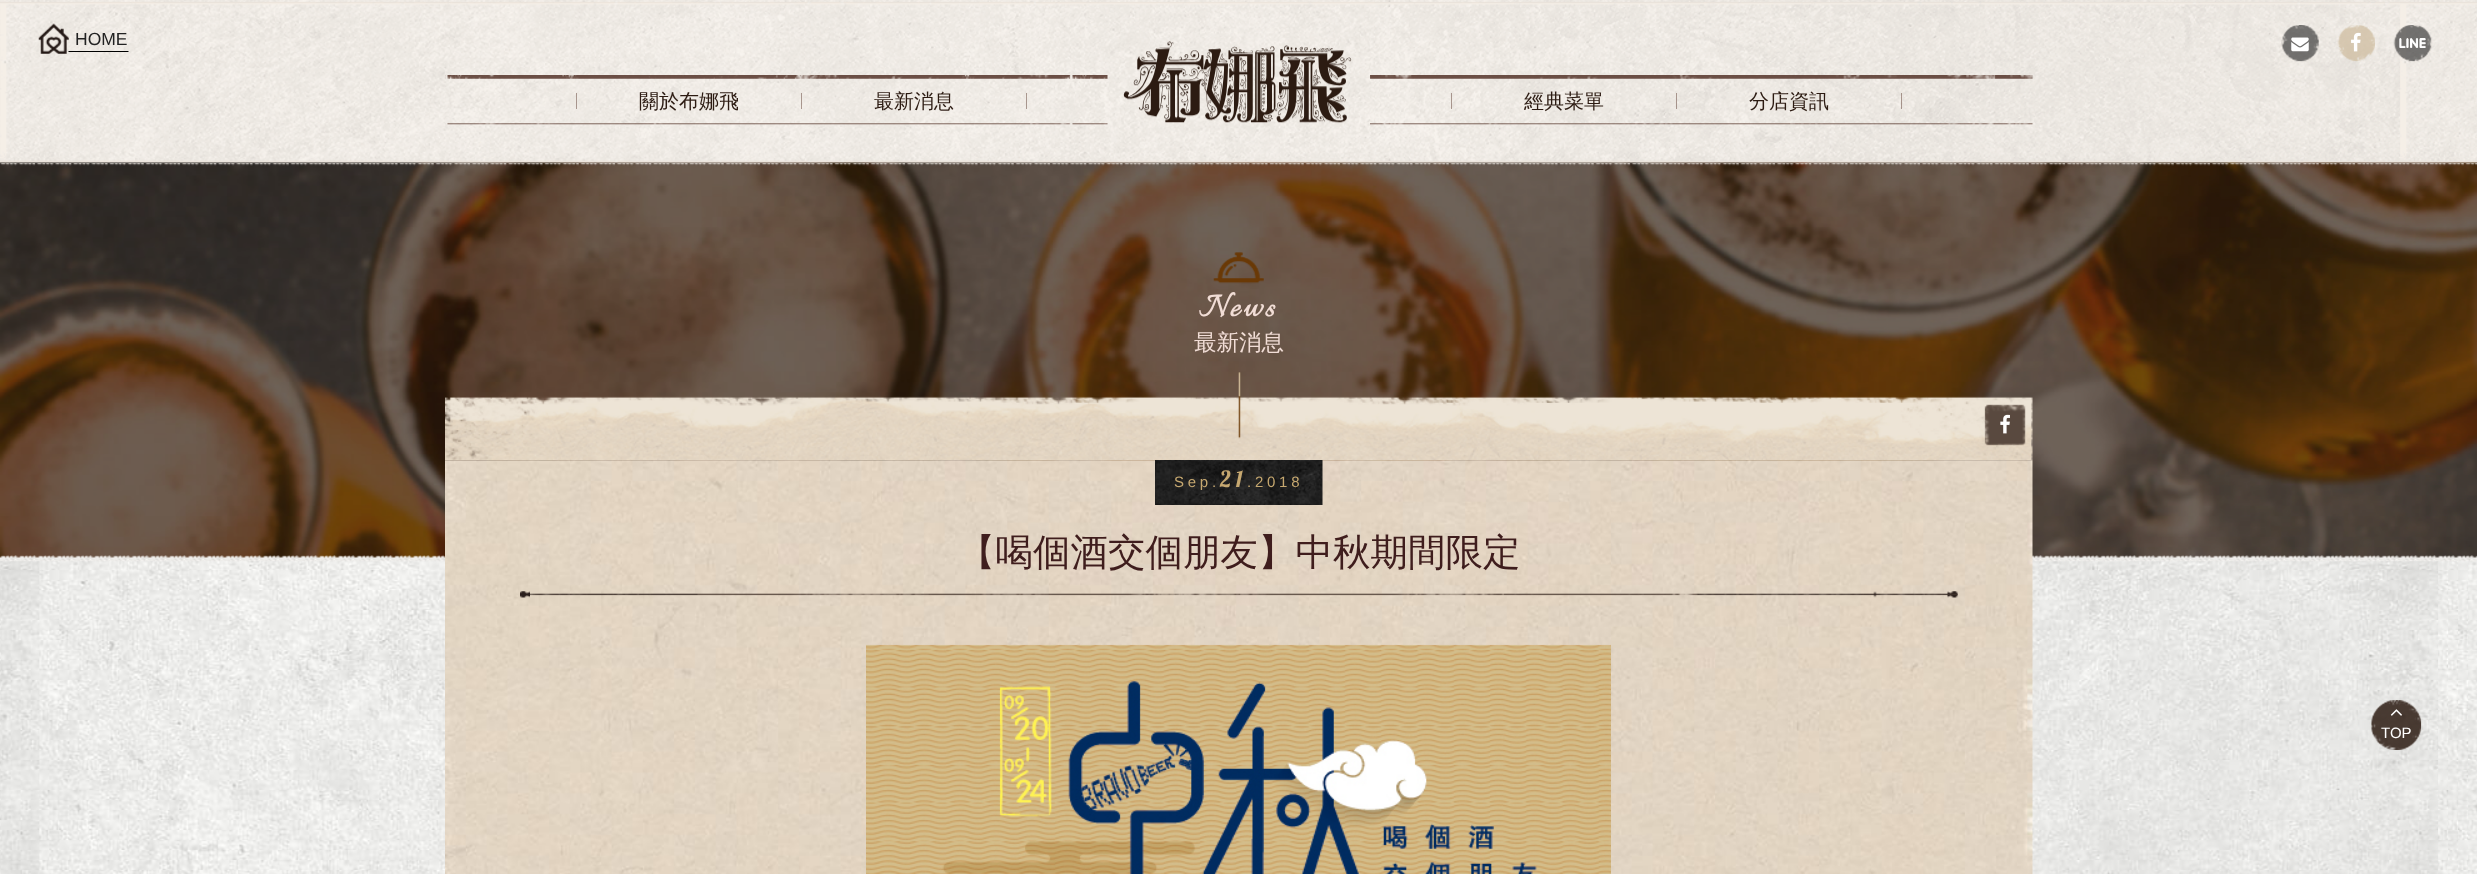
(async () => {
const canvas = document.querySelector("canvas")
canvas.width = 2477
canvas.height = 874
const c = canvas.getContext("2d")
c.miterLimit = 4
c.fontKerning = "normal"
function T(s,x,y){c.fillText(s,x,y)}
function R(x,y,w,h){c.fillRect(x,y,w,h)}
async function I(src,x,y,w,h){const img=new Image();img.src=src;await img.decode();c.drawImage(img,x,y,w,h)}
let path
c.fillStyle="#fff"
R(0,0,2477,874)
await I("15.png",0,162,2477,396)
await I("1.png",0,0,2477,163)
c.fillStyle="#000"
path = new Path2D("M129 52h-61l1-1h59z")
c.fill(path)
await I("2.png",38,23,31,31)
c.font="17.5px Liberation Sans"
c.fillStyle="#222"
T("HOME",75,45)
await I("3.png",2281,25,38,37)
await I("4.png",2291,37,18,15)
await I("5.png",2337,25,38,37)
await I("6.png",2351,32,10,20)
await I("7.png",2393,25,39,37)
await I("8.png",1123,41,229,82)
await I("9.png",445,75,663,4)
c.fillStyle="#54332875"
R(576,93,1,16)
c.font="500 20px WenQuanYi Zen Hei"
c.fillStyle="#2c1b12"
T("關於布娜飛",639,108)
c.fillStyle="#54332875"
R(801,93,1,16)
c.fillStyle="#2c1b12"
T("最新消息",874,108)
c.fillStyle="#54332875"
R(1026,93,1,16)
await I("10.png",445,123,663,2)
await I("11.png",1370,75,663,4)
R(1451,93,1,16)
c.fillStyle="#2c1b12"
T("經典菜單",1524,108)
c.fillStyle="#54332875"
R(1676,93,1,16)
c.fillStyle="#2c1b12"
T("分店資訊",1749,108)
c.fillStyle="#54332875"
R(1901,93,1,16)
await I("12.png",1370,123,663,2)
await I("13.png",0,163,2477,3)
await I("14.png",0,561,2477,313)
await I("16.png",1213,252,51,32)
c.letterSpacing="3.75px"
c.font="bold 37.5px Italianno"
c.fillStyle="#f1ddd6"
T("News",1199,316)
c.letterSpacing="0px"
c.font="500 22.5px WenQuanYi Zen Hei"
T("最新消息",1194,350)
await I("25.png",0,555,2477,7)
await I("18.png",445,459,1588,415)
await I("19.png",445,396,1588,64)
await I("17.png",1238,372,3,67)
await I("20.png",1984,404,42,42)
await I("21.png",2000,414,10,20)
await I("22.png",1155,460,168,45)
c.letterSpacing="3.75px"
c.font="15px Liberation Sans"
c.fillStyle="#c6a870"
T("Sep.",1174,487)
c.font="22.5px 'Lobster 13'"
T("21",1220,487)
c.font="15px Liberation Sans"
T(".2018",1247,487)
c.letterSpacing="0px"
c.font="500 37.5px WenQuanYi Zen Hei"
c.fillStyle="#3f1d1d"
T("【喝個酒交個朋友】中秋期間限定",958,565)
await I("23.png",520,591,1438,7)
await I("24.png",866,644,745,230)
await I("26.png",2371,700,51,50)
await I("27.png",2390,709,12,7)
c.font="15px Liberation Sans"
c.fillStyle="#fff"
T("TOP",2381,738)
})()
